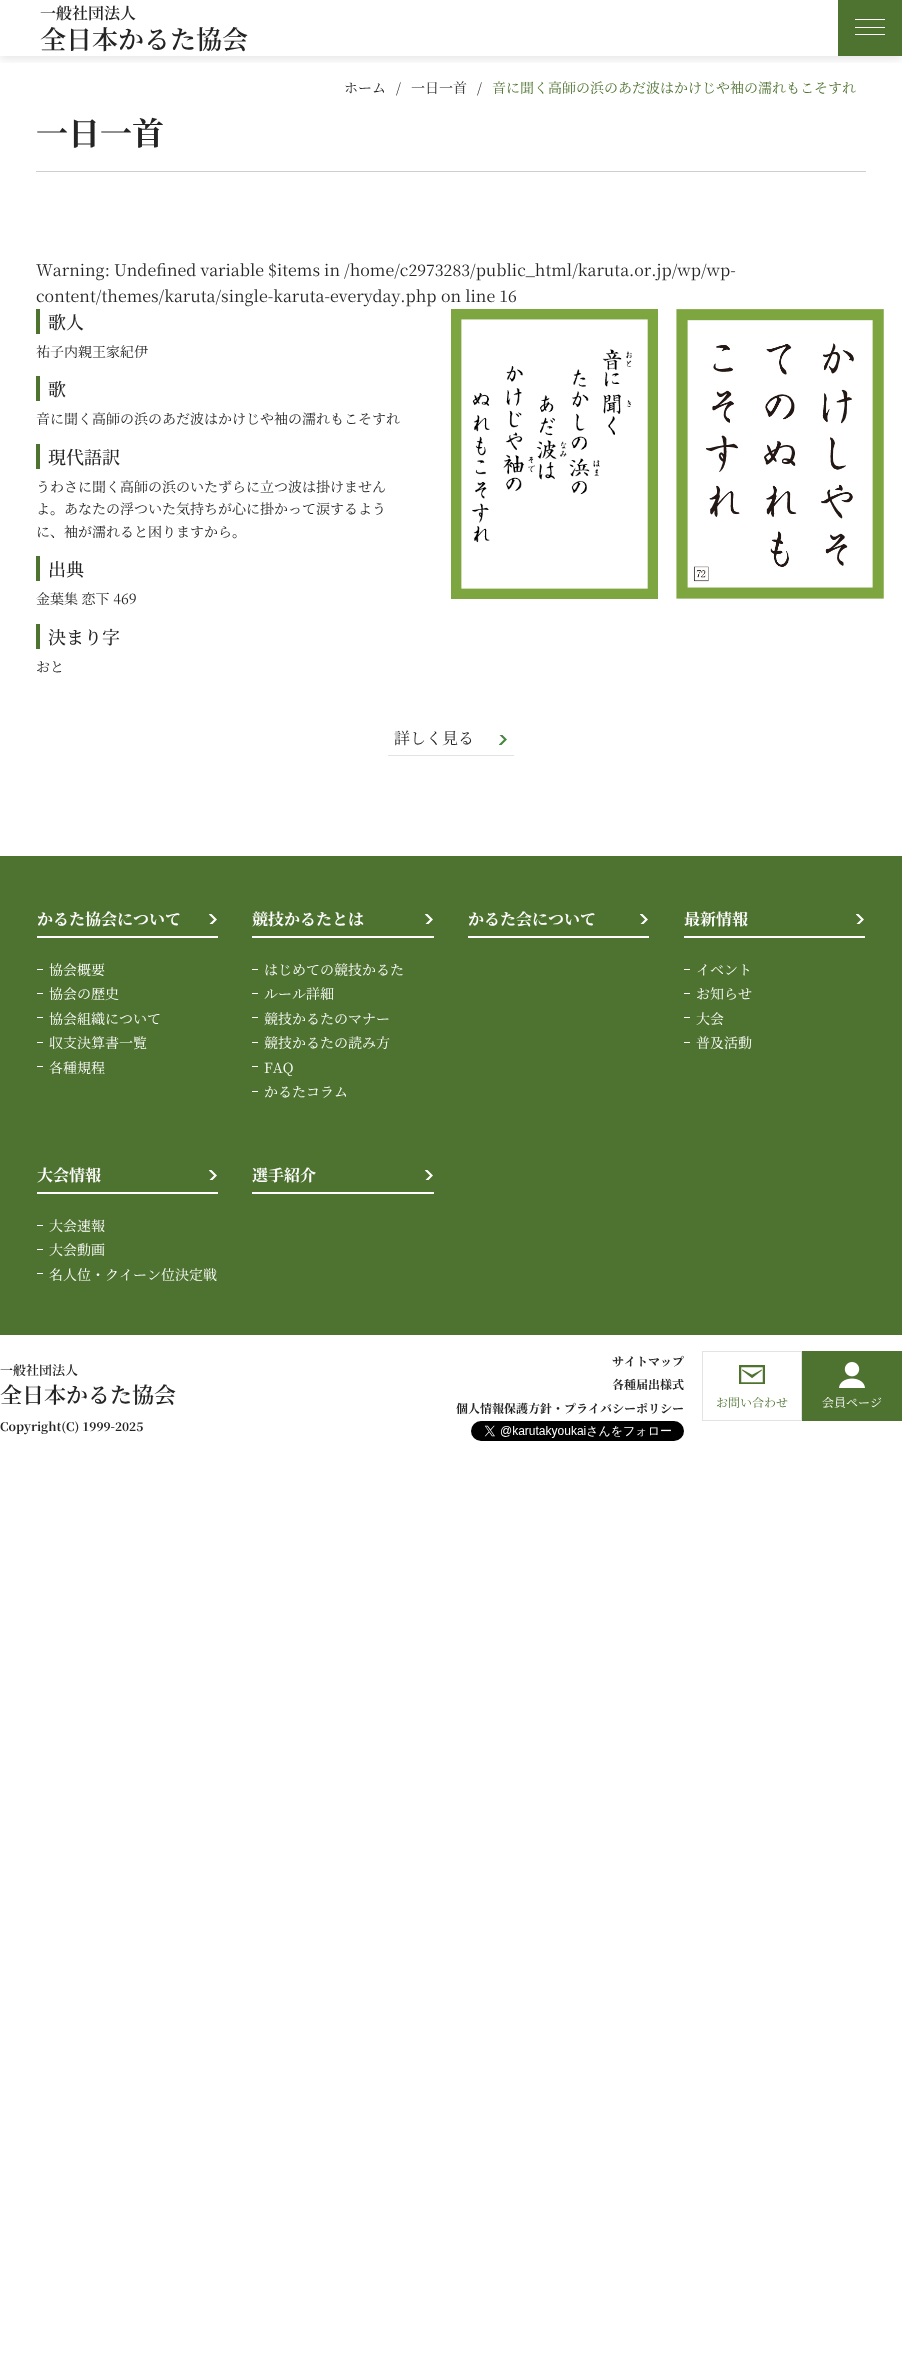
(async () => {
const canvas = document.querySelector("canvas")
canvas.width = 902
canvas.height = 2363
const c = canvas.getContext("2d")
c.miterLimit = 4
c.fontKerning = "none"
function T(s,x,y){c.fillText(s,x,y)}
function R(x,y,w,h){c.fillRect(x,y,w,h)}
async function I(src,x,y,w,h){const img=new Image();img.src=src;await img.decode();c.drawImage(img,x,y,w,h)}
let path
c.fillStyle="#fff"
R(0,0,902,2363)
c.save()
c.beginPath()
c.rect(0,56,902,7)
c.clip()
c.fillStyle="#0000001a"
c.filter="blur(5px)"
c.beginPath()
c.rect(0,3,902,56)
c.fill()
c.filter="none"
c.restore()
c.font="600 16px Noto Serif JP"
c.fillStyle="#242424"
T("一般社団法人",40,19)
c.font="600 26px Noto Serif JP"
T("全日本かるた協会",40,49)
c.fillStyle="#4e7230"
R(838,0,64,56)
c.fillStyle="#fff"
R(855,27,30,1)
R(855,19,30,1)
R(855,34,30,1)
c.font="14px Noto Serif JP"
c.fillStyle="#242424"
T("ホーム",344,93)
T("/",396,93)
T("一日一首",411,93)
T("/",477,93)
c.fillStyle="#4e7230"
T("音に聞く高師の浜のあだ波はかけじや袖の濡れもこそすれ",492,93)
c.fillStyle="#cecece"
R(36,171,830,1)
c.font="bold 32px Noto Serif JP"
c.fillStyle="#242424"
T("一日一首",36,145)
c.font="16px Noto Serif JP"
T("Warning: Undefined variable $items in /home/c2973283/public_html/karuta.or.jp/wp/wp-",36,276)
T("content/themes/karuta/single-karuta-everyday.php",36,302)
T("on line 16",441,302)
c.fillStyle="#4e7230"
R(36,309,4,25)
c.font="500 18px Noto Serif JP"
c.fillStyle="#242424"
T("歌人",48,329)
c.font="14px Noto Serif JP"
T("祐子内親王家紀伊",36,357)
c.fillStyle="#4e7230"
R(36,376,4,25)
c.font="500 18px Noto Serif JP"
c.fillStyle="#242424"
T("歌",48,396)
c.font="14px Noto Serif JP"
T("音に聞く高師の浜のあだ波はかけじや袖の濡れもこそすれ",36,424)
c.fillStyle="#4e7230"
R(36,444,4,25)
c.font="500 18px Noto Serif JP"
c.fillStyle="#242424"
T("現代語訳",48,464)
c.font="14px Noto Serif JP"
T("うわさに聞く高師の浜のいたずらに立つ波は掛けません",36,492)
T("よ。あなたの浮ついた気持ちが心に掛かって涙するよう",36,514)
T("に、袖が濡れると困りますから。",36,537)
c.fillStyle="#4e7230"
R(36,556,4,25)
c.font="500 18px Noto Serif JP"
c.fillStyle="#242424"
T("出典",48,576)
c.font="14px Noto Serif JP"
T("金葉集 恋下 469",36,604)
c.fillStyle="#4e7230"
R(36,624,4,25)
c.font="500 18px Noto Serif JP"
c.fillStyle="#242424"
T("決まり字",48,644)
c.font="14px Noto Serif JP"
T("おと",36,672)
await I("1.png",451,309,207,290)
await I("2.png",676,309,208,290)
c.fillStyle="#e3e3e3"
R(388,755,126,1)
c.font="16px Noto Serif JP"
c.fillStyle="#242424"
T("詳しく見る",394,744)
c.save()
c.beginPath()
c.rect(499,735,8,10)
c.clip()
path = new Path2D("M499.5 733.5l6 6l-6 6")
c.strokeStyle="#488643"
c.lineWidth=2.1
c.stroke(path)
c.restore()
c.fillStyle="#4e7230"
R(0,856,902,479)
c.fillStyle="#fff"
R(37,936,181,2)
c.font="bold 16px Noto Serif JP"
T("かるた協会について",37,925)
c.save()
c.beginPath()
c.rect(209,914,8,10)
c.clip()
path = new Path2D("M209.5 913.5l6 6l-6 6")
c.strokeStyle="#fff"
c.lineWidth=2.1
c.stroke(path)
c.restore()
R(37,969,6,1)
c.font="14px Noto Serif JP"
T("協会概要",49,975)
R(37,993,6,1)
T("協会の歴史",49,999)
R(37,1017,6,1)
T("協会組織について",49,1024)
R(37,1042,6,1)
T("収支決算書一覧",49,1048)
R(37,1066,6,1)
T("各種規程",49,1073)
R(252,936,182,2)
c.font="bold 16px Noto Serif JP"
T("競技かるたとは",252,925)
c.save()
c.beginPath()
c.rect(425,914,8,10)
c.clip()
path = new Path2D("M425.5 913.5l6 6l-6 6")
c.strokeStyle="#fff"
c.lineWidth=2.1
c.stroke(path)
c.restore()
R(252,969,6,1)
c.font="14px Noto Serif JP"
T("はじめての競技かるた",264,975)
R(252,993,6,1)
T("ルール詳細",264,999)
R(252,1017,6,1)
T("競技かるたのマナー",264,1024)
R(252,1042,6,1)
T("競技かるたの読み方",264,1048)
R(252,1066,6,1)
T("FAQ",264,1073)
R(252,1091,6,1)
T("かるたコラム",264,1097)
R(468,936,181,2)
c.font="bold 16px Noto Serif JP"
T("かるた会について",468,925)
c.save()
c.beginPath()
c.rect(640,914,8,10)
c.clip()
path = new Path2D("M640.5 913.5l6 6l-6 6")
c.strokeStyle="#fff"
c.lineWidth=2.1
c.stroke(path)
c.restore()
R(684,936,181,2)
T("最新情報",684,925)
c.save()
c.beginPath()
c.rect(856,914,8,10)
c.clip()
path = new Path2D("M856.5 913.5l6 6l-6 6")
c.strokeStyle="#fff"
c.lineWidth=2.1
c.stroke(path)
c.restore()
R(684,969,6,1)
c.font="14px Noto Serif JP"
T("イベント",696,975)
R(684,993,6,1)
T("お知らせ",696,999)
R(684,1017,6,1)
T("大会",696,1024)
R(684,1042,6,1)
T("普及活動",696,1048)
R(37,1192,181,2)
c.font="bold 16px Noto Serif JP"
T("大会情報",37,1181)
c.save()
c.beginPath()
c.rect(209,1170,8,10)
c.clip()
path = new Path2D("M209.5 1169.5l6 6l-6 6")
c.strokeStyle="#fff"
c.lineWidth=2.1
c.stroke(path)
c.restore()
R(37,1225,6,1)
c.font="14px Noto Serif JP"
T("大会速報",49,1231)
R(37,1249,6,1)
T("大会動画",49,1255)
R(37,1273,6,1)
T("名人位・クイーン位決定戦",49,1280)
R(252,1192,182,2)
c.font="bold 16px Noto Serif JP"
T("選手紹介",252,1181)
c.save()
c.beginPath()
c.rect(425,1170,8,10)
c.clip()
path = new Path2D("M425.5 1169.5l6 6l-6 6")
c.strokeStyle="#fff"
c.lineWidth=2.1
c.stroke(path)
c.restore()
c.font="600 13px Noto Serif JP"
c.fillStyle="#242424"
T("一般社団法人",0,1375)
c.font="600 22px Noto Serif JP"
T("全日本かるた協会",0,1403)
c.font="bold 12px Noto Serif JP"
T("Copyright(C) 1999-2025",0,1431)
T("サイトマップ",612,1366)
T("各種届出様式",612,1389)
T("個人情報保護方針・プライバシーポリシー",456,1413)
await I("3.png",471,1421,213,20)
c.strokeStyle="#e3e3e3"
c.strokeRect(702.5,1351.5,99,69)
await I("4.png",739,1365,26,19)
c.font="12px Noto Serif JP"
c.fillStyle="#4e7230"
T("お問い合わせ",716,1407)
R(802,1351,100,70)
await I("5.png",839,1362,26,26)
c.fillStyle="#fff"
T("会員ページ",822,1407)
})()
